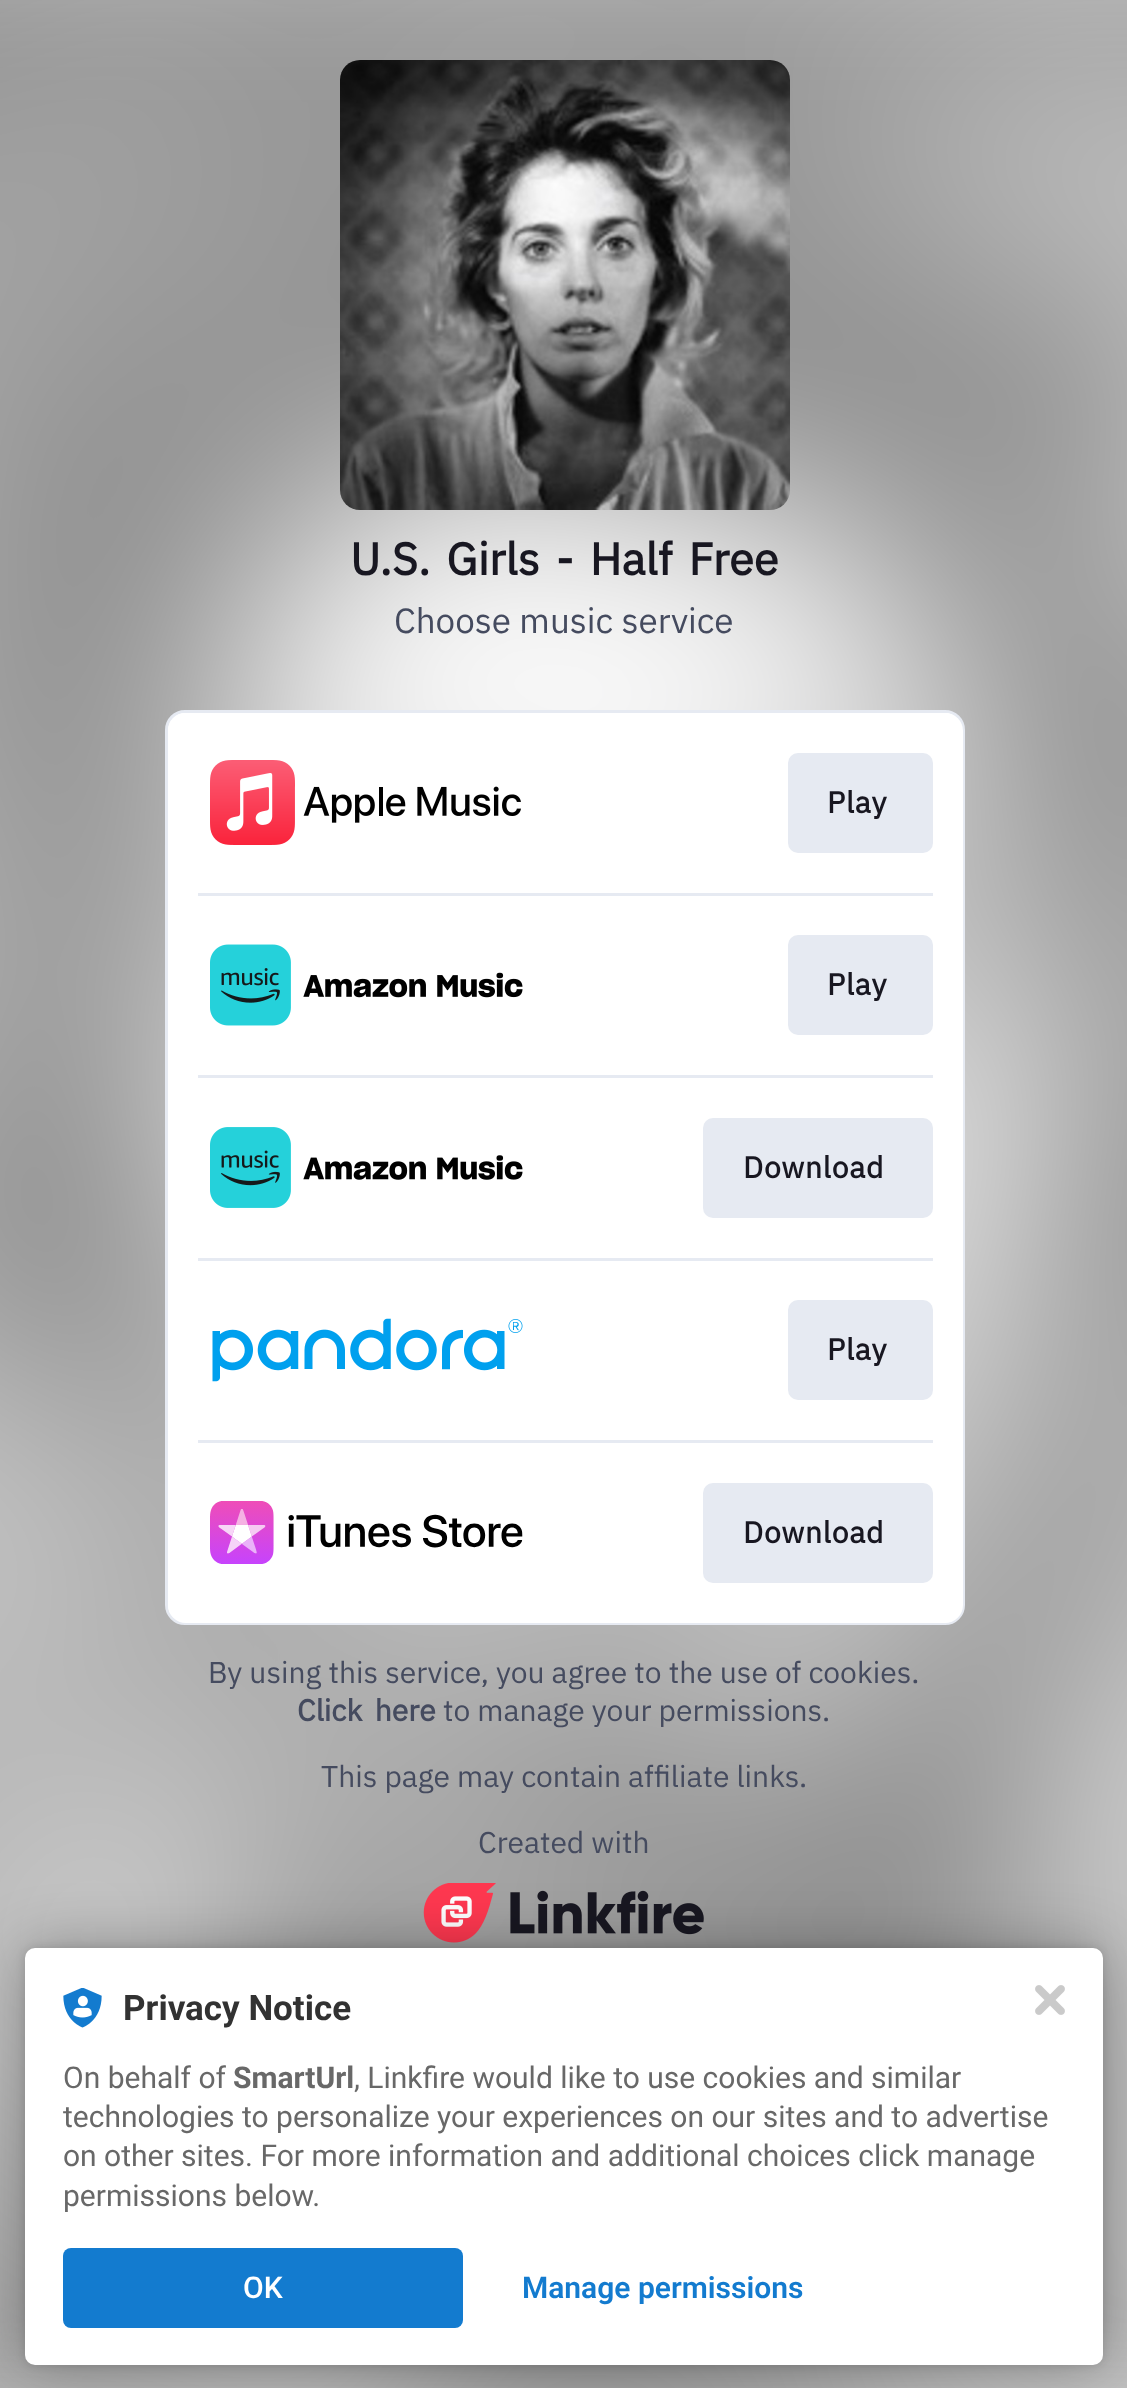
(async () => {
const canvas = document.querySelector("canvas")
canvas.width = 1127
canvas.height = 2388
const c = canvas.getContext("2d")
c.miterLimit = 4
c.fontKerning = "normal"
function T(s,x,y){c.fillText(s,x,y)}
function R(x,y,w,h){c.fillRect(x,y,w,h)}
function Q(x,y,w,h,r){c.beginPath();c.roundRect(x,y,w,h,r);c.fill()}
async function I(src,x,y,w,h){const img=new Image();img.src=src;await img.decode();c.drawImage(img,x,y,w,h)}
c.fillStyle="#fff"
R(0,0,1127,2388)
await I("1.png",0,0,1127,2388)
await I("2.png",340,60,450,450)
c.wordSpacing="5.5px"
c.font="bold 45px IBM Plex Sans"
c.fillStyle="#181721"
T("U.S. Girls - Half Free",350,575)
c.wordSpacing="0px"
c.font="35px IBM Plex Sans"
c.fillStyle="#454b5f"
T("Choose music service",394,633)
c.fillStyle="#fff"
c.beginPath()
c.roundRect(166.5,711.5,797,912,18.5)
c.fill()
c.strokeStyle="#e6eaf2"
c.lineWidth=3
c.stroke()
Q(168,713,795,910,18)
await I("3.png",210,760,311,85)
c.fillStyle="#e6eaf2"
Q(788,753,145,100,10)
c.letterSpacing="0.75px"
c.font="bold 30px IBM Plex Sans"
c.fillStyle="#181721"
T("Play",827,813)
c.fillStyle="#e6eaf2"
R(198,893,735,3)
await I("4.png",210,944,313,82)
Q(788,935,145,100,10)
c.fillStyle="#181721"
T("Play",827,995)
c.fillStyle="#e6eaf2"
R(198,1075,735,3)
await I("5.png",210,1127,313,81)
Q(703,1118,230,100,10)
c.fillStyle="#181721"
T("Download",743,1178)
c.fillStyle="#e6eaf2"
R(198,1258,735,3)
await I("6.png",212,1318,311,64)
Q(788,1300,145,100,10)
c.fillStyle="#181721"
T("Play",827,1360)
c.fillStyle="#e6eaf2"
R(198,1440,735,3)
await I("7.png",210,1501,313,63)
Q(703,1483,230,100,10)
c.fillStyle="#181721"
T("Download",743,1543)
c.letterSpacing="0px"
c.font="30px IBM Plex Sans"
c.fillStyle="#454b5f"
T("By using this service, you agree to the use of cookies.",208,1683)
c.wordSpacing="5.5px"
c.font="bold 30px IBM Plex Sans"
T("Click here",297,1721)
c.wordSpacing="0px"
c.font="30px IBM Plex Sans"
T("to manage your permissions.",443,1721)
T("This page may contain affiliate links.",321,1787)
T("Created with",478,1853)
await I("8.png",423,1883,281,60)
c.fillStyle="#0000001f"
c.filter="blur(5px)"
c.beginPath()
c.roundRect(25,1948,1078,417,10)
c.fill()
c.filter="none"
c.fillStyle="#0000004d"
c.filter="blur(30px)"
c.beginPath()
c.roundRect(25,1948,1078,417,10)
c.fill()
c.filter="none"
c.fillStyle="#fff"
Q(25,1948,1078,417,10)
await I("9.png",63,1988,39,40)
c.font="bold 35px Roboto"
c.fillStyle="#323232"
T("Privacy Notice",123,2020)
c.font="30px Roboto"
c.fillStyle="#686868"
T("On behalf of",63,2088)
c.font="bold 30px Roboto"
T("SmartUrl",233,2088)
c.font="30px Roboto"
T(", Linkfire would like to use cookies and similar",354,2088)
T("technologies to personalize your experiences on our sites and to advertise",63,2127)
T("on other sites. For more information and additional choices click manage",63,2166)
T("permissions below.",63,2206)
c.fillStyle="#137bcf"
Q(63,2248,400,80,8)
c.font="500 30px Roboto"
c.fillStyle="#fff"
T("OK",243,2298)
c.font="600 30px Roboto"
c.fillStyle="#137bcf"
T("Manage permissions",522,2298)
await I("10.png",1035,1985,30,30)
})()
